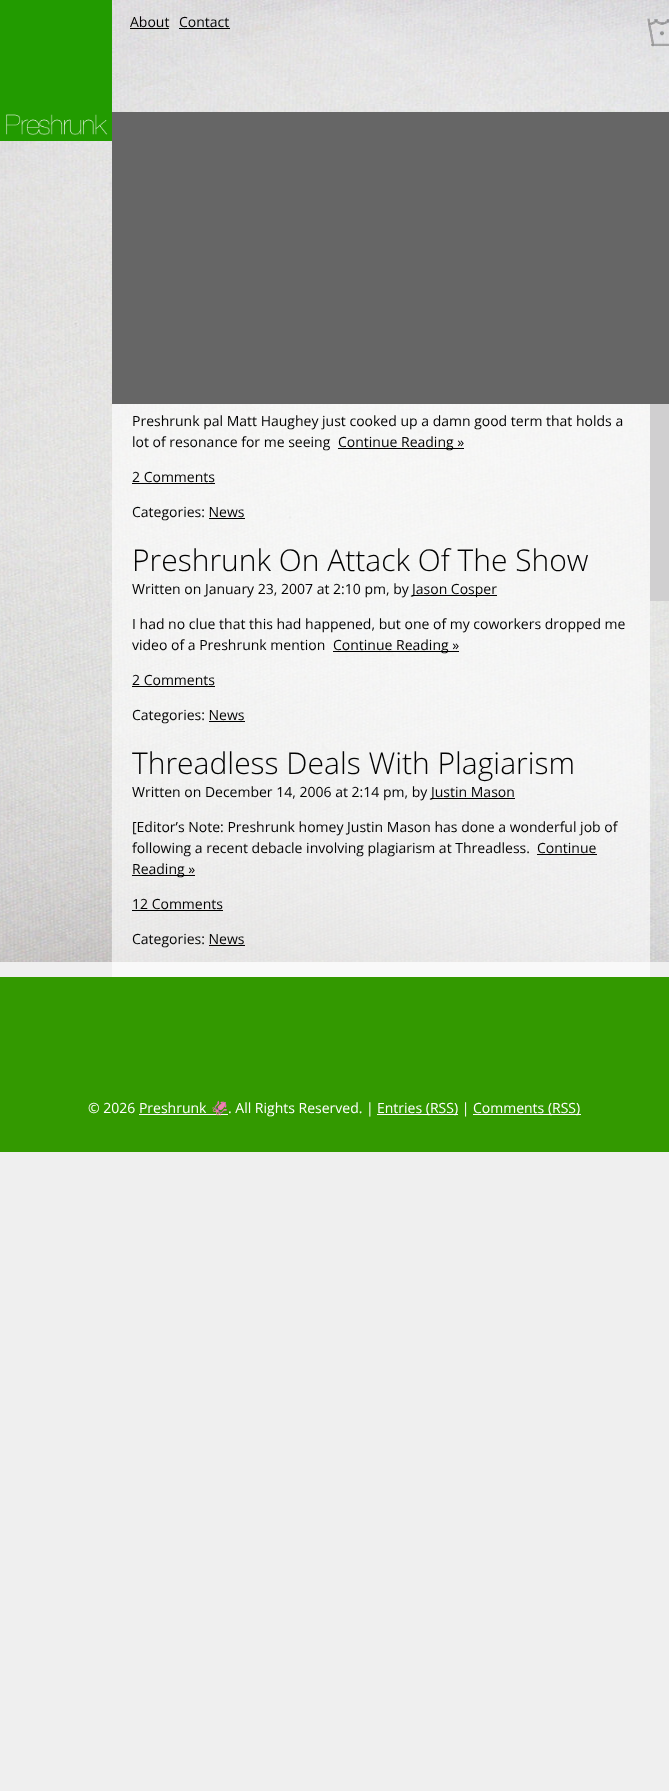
(async () => {
const canvas = document.querySelector("canvas")
canvas.width = 669
canvas.height = 1791
const c = canvas.getContext("2d")
c.miterLimit = 4
c.fontKerning = "normal"
function T(s,x,y){c.fillText(s,x,y)}
function R(x,y,w,h){c.fillRect(x,y,w,h)}
async function I(src,x,y,w,h){const img=new Image();img.src=src;await img.decode();c.drawImage(img,x,y,w,h)}
c.fillStyle="#efefef"
R(0,0,669,1791)
await I("1.png",0,0,669,962)
await I("2.png",0,0,112,141)
c.font="14px Open Sans"
c.fillStyle="#000"
T("About",130,27)
R(130,28,39,1)
T("Contact",179,27)
R(179,28,51,1)
await I("3.png",647,18,22,29)
c.fillStyle="#666"
R(112,112,557,292)
c.fillStyle="#ffffff99"
R(112,404,538,573)
c.fillStyle="#000"
T("Preshrunk pal Matt Haughey just cooked up a damn good term that holds a",132,426)
T("lot of resonance for me seeing",132,447)
R(338,448,126,1)
T("Continue Reading »",338,447)
T("2 Comments",132,482)
R(132,483,83,1)
T("Categories: News",132,517)
R(209,518,36,1)
c.font="300 30px Open Sans"
T("Preshrunk On Attack Of The Show",132,571)
c.font="14px Open Sans"
T("Written on January 23, 2007 at 2:10 pm, by",132,594)
R(412,595,85,1)
T("Jason Cosper",412,594)
T("I had no clue that this had happened, but one of my coworkers dropped me",132,629)
T("video of a Preshrunk mention",132,650)
R(333,651,126,1)
T("Continue Reading »",333,650)
T("2 Comments",132,685)
R(132,686,83,1)
T("Categories: News",132,720)
R(209,721,36,1)
c.font="300 30px Open Sans"
T("Threadless Deals With Plagiarism",132,774)
c.font="14px Open Sans"
T("Written on December 14, 2006 at 2:14 pm, by",132,797)
R(431,798,84,1)
T("Justin Mason",431,797)
T("[Editor’s Note: Preshrunk homey Justin Mason has done a wonderful job of",132,832)
T("following a recent debacle involving plagiarism at Threadless.",132,853)
T("Continue",537,853)
R(537,854,60,1)
R(132,875,63,1)
T("Reading »",132,874)
T("12 Comments",132,909)
R(132,910,91,1)
T("Categories: News",132,944)
R(209,945,36,1)
c.fillStyle="#d0cfd0"
R(650,404,19,197)
c.fillStyle="#390"
R(0,977,669,175)
c.fillStyle="#fff"
T("© 2026 Preshrunk",88,1113)
R(139,1114,89,1)
c.font="14px Noto Color Emoji"
T("🦑",211,1113)
c.font="14px Open Sans"
T(". All Rights Reserved. |",228,1113)
R(377,1114,81,1)
T("Entries (RSS) |",377,1113)
R(473,1114,108,1)
T("Comments (RSS)",473,1113)
})()
